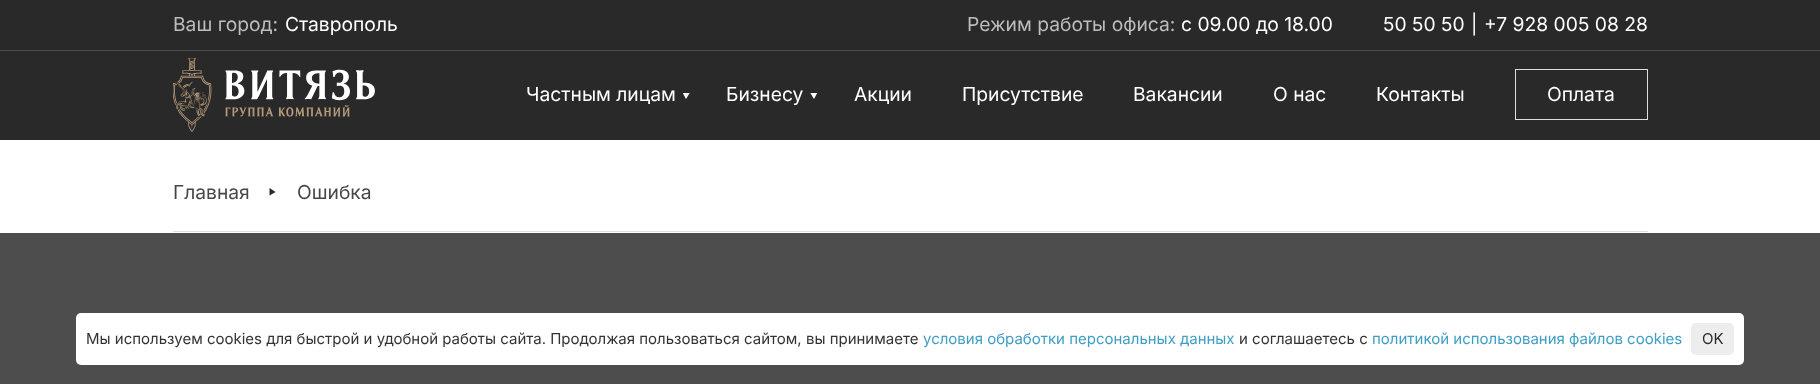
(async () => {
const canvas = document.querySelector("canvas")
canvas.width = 1820
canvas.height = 384
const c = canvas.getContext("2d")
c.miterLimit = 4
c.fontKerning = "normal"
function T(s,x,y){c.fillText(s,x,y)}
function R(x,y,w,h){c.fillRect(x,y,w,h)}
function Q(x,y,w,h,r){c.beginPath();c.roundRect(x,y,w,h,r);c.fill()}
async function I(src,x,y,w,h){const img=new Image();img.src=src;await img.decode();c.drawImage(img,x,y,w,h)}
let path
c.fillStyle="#fff"
R(0,0,1820,384)
c.fillStyle="#292929"
R(0,0,1820,140)
c.font="19.25px Inter"
c.fillStyle="#bdbdbd"
T("Ваш город:",173,31)
c.fillStyle="#fff"
T("Ставрополь",285,31)
c.fillStyle="#bdbdbd"
T("Режим работы офиса:",967,31)
c.fillStyle="#fff"
T("с 09.00 до 18.00",1181,31)
T("50 50 50",1383,31)
T("|",1471,31)
T("+7 928 005 08 28",1484,31)
c.fillStyle="#4f4f4f"
R(0,50,1820,1)
await I("1.png",173,58,202,74)
c.fillStyle="#fff"
T("Частным лицам",526,101)
c.save()
c.beginPath()
c.rect(683,93,7,6)
c.clip()
path = new Path2D("M686 99l-3.5-6.5h7.5z")
c.fill(path)
c.restore()
T("Бизнесу",726,101)
c.save()
c.beginPath()
c.rect(810,93,8,6)
c.clip()
path = new Path2D("M814 99l-4-6.5h7.5z")
c.fill(path)
c.restore()
T("Акции",854,101)
T("Присутствие",962,101)
T("Вакансии",1133,101)
T("О нас",1273,101)
T("Контакты",1376,101)
c.strokeStyle="#dedede"
c.strokeRect(1515.5,69.5,132,50)
T("Оплата",1547,101)
c.fillStyle="#dedede"
R(173,231,1475,1)
c.fillStyle="#474747"
T("Главная",173,199)
c.fillStyle="#292929"
path = new Path2D("M275.5 192l-6 3.5v-7.5z")
c.fill(path)
c.fillStyle="#474747"
T("Ошибка",297,199)
c.fillStyle="#4d4d4d"
R(0,233,1820,151)
c.fillStyle="#fff"
Q(76,313,1668,52,5)
c.font="15px Inter"
c.fillStyle="#333"
T("Мы используем cookies для быстрой и удобной работы сайта. Продолжая пользоваться сайтом, вы принимаете",86,344)
c.fillStyle="#3e9ec5"
T("условия обработки персональных данных",923,344)
c.fillStyle="#333"
T("и соглашаетесь с",1239,344)
c.fillStyle="#3e9ec5"
T("политикой использования файлов cookies",1372,344)
c.fillStyle="#ededed"
Q(1691,323,43,32,5)
c.fillStyle="#292929"
T("OK",1702,344)
})()
